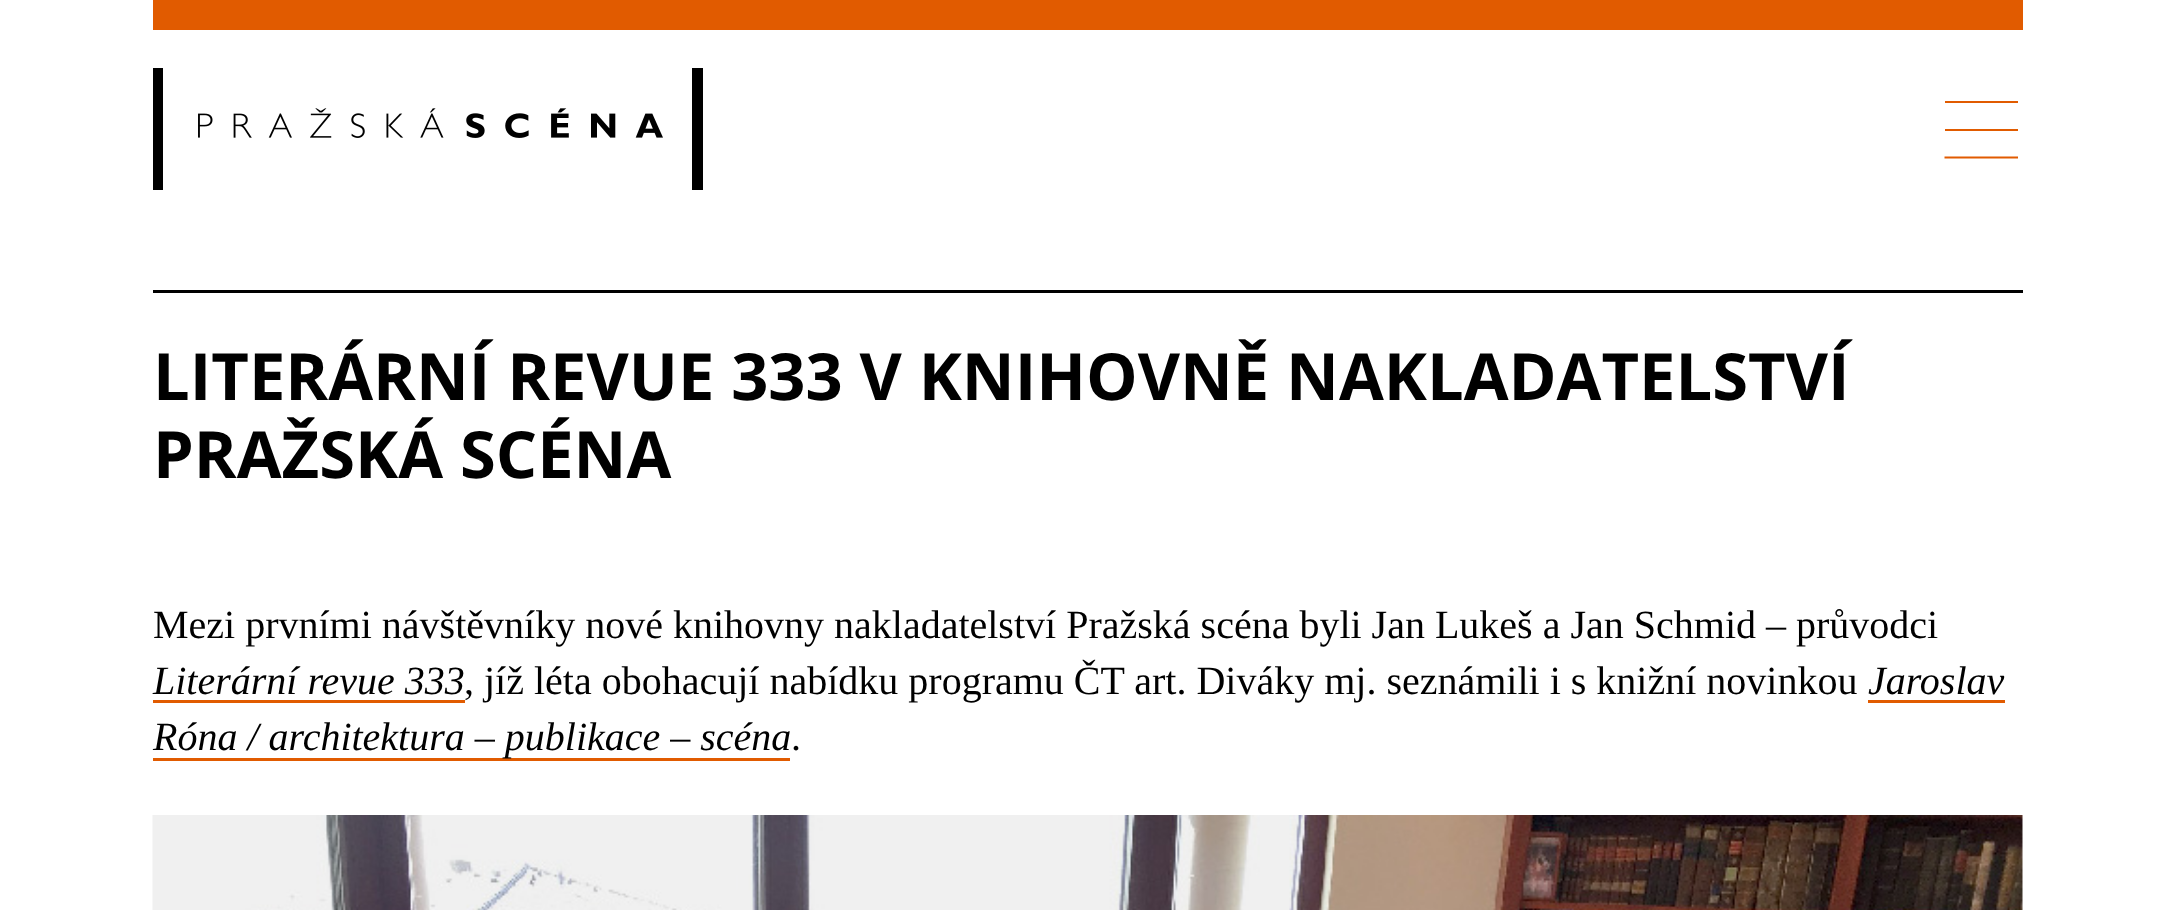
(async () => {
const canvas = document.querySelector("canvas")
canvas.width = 2173
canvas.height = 910
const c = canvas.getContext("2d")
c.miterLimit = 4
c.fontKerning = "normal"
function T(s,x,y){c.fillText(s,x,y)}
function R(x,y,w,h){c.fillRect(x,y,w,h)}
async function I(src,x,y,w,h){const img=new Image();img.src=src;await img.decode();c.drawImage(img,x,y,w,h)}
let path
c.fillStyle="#fff"
R(0,0,2173,910)
c.fillStyle="#e15b00"
R(153,0,1870,30)
await I("1.png",153,68,550,122)
R(1945,101,73,2)
R(1945,129,73,2)
path = new Path2D("M2018 157.5h-73.5")
c.strokeStyle="#e15b00"
c.lineWidth=2.2
c.stroke(path)
c.fillStyle="#000"
R(153,290,1870,3)
c.font="bold 65px Open Sans"
T("LITERÁRNÍ REVUE 333 V KNIHOVNĚ NAKLADATELSTVÍ",153,400)
T("PRAŽSKÁ SCÉNA",153,478)
c.font="40px Liberation Serif"
T("Mezi prvními návštěvníky nové knihovny nakladatelství Pražská scéna byli Jan Lukeš a Jan Schmid – průvodci",153,638)
c.font="italic 40px Liberation Serif"
T("Literární revue 333",153,694)
c.fillStyle="#e15b00"
R(153,700,312,3)
c.font="40px Liberation Serif"
c.fillStyle="#000"
T(", jíž léta obohacují nabídku programu ČT art. Diváky mj. seznámili i s knižní novinkou",464,694)
c.font="italic 40px Liberation Serif"
T("Jaroslav",1868,694)
c.fillStyle="#e15b00"
R(1868,700,137,3)
R(153,758,637,3)
c.fillStyle="#000"
T("Róna / architektura – publikace – scéna",153,750)
c.font="40px Liberation Serif"
T(".",791,750)
await I("2.png",152,815,1871,95)
})()
